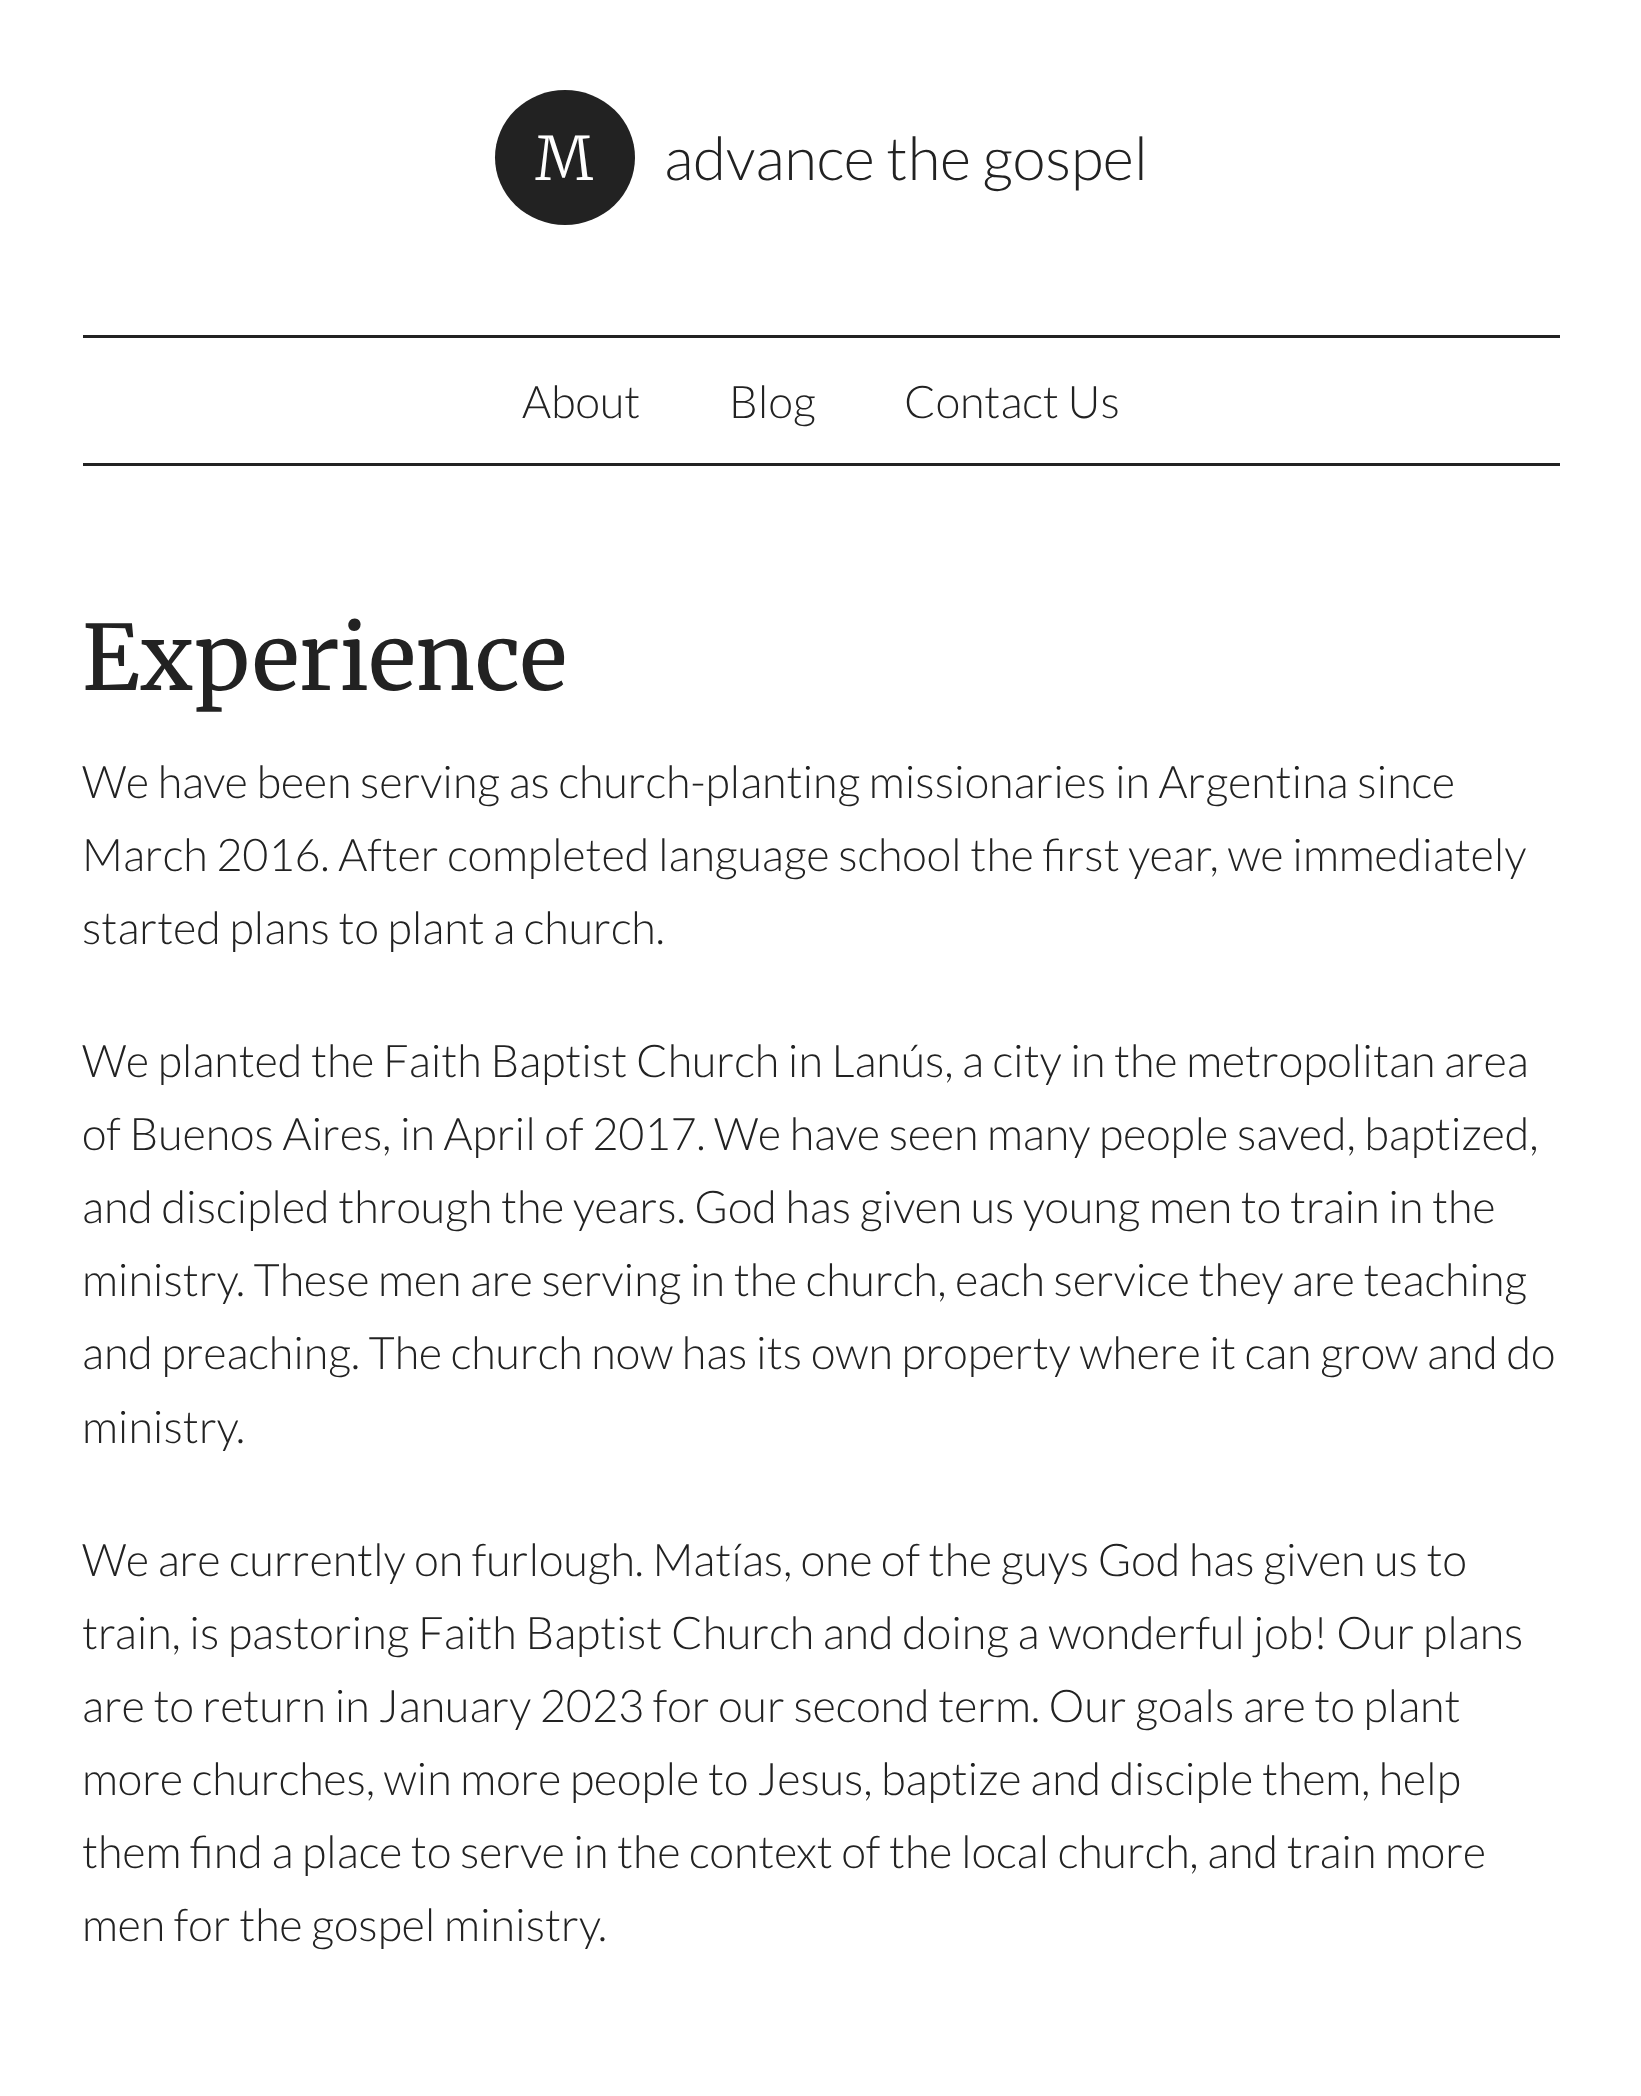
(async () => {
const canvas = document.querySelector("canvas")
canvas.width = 1641
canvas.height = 2096
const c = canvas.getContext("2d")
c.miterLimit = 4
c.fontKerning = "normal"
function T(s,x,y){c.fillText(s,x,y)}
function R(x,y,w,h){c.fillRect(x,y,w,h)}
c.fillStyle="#fff"
R(0,0,1641,2096)
c.fillStyle="#222"
R(83,335,1477,3)
c.beginPath()
c.ellipse(565,157.5,70,67.5,0,0,7)
c.fill()
c.font="300 60px Merriweather"
c.fillStyle="#fff"
T("M",535,180)
c.font="300 60px Lato"
c.fillStyle="#222"
T("advance the gospel",664,180)
R(83,463,1477,3)
c.font="300 45px Lato"
T("About",522,418)
T("Blog",729,418)
T("Contact Us",904,418)
c.font="90px Merriweather"
T("Experience",82,690)
c.font="300 45px Lato"
T("We have been serving as church-planting missionaries in Argentina since",82,798)
T("March 2016. After completed language school the first year, we immediately",82,871)
T("started plans to plant a church.",82,944)
T("We planted the Faith Baptist Church in Lanús, a city in the metropolitan area",82,1077)
T("of Buenos Aires, in April of 2017. We have seen many people saved, baptized,",82,1150)
T("and discipled through the years. God has given us young men to train in the",82,1223)
T("ministry. These men are serving in the church, each service they are teaching",82,1296)
T("and preaching. The church now has its own property where it can grow and do",82,1369)
T("ministry.",82,1443)
T("We are currently on furlough. Matías, one of the guys God has given us to",82,1576)
T("train, is pastoring Faith Baptist Church and doing a wonderful job! Our plans",82,1649)
T("are to return in January 2023 for our second term. Our goals are to plant",82,1722)
T("more churches, win more people to Jesus, baptize and disciple them, help",82,1795)
T("them find a place to serve in the context of the local church, and train more",82,1868)
T("men for the gospel ministry.",82,1941)
})()
